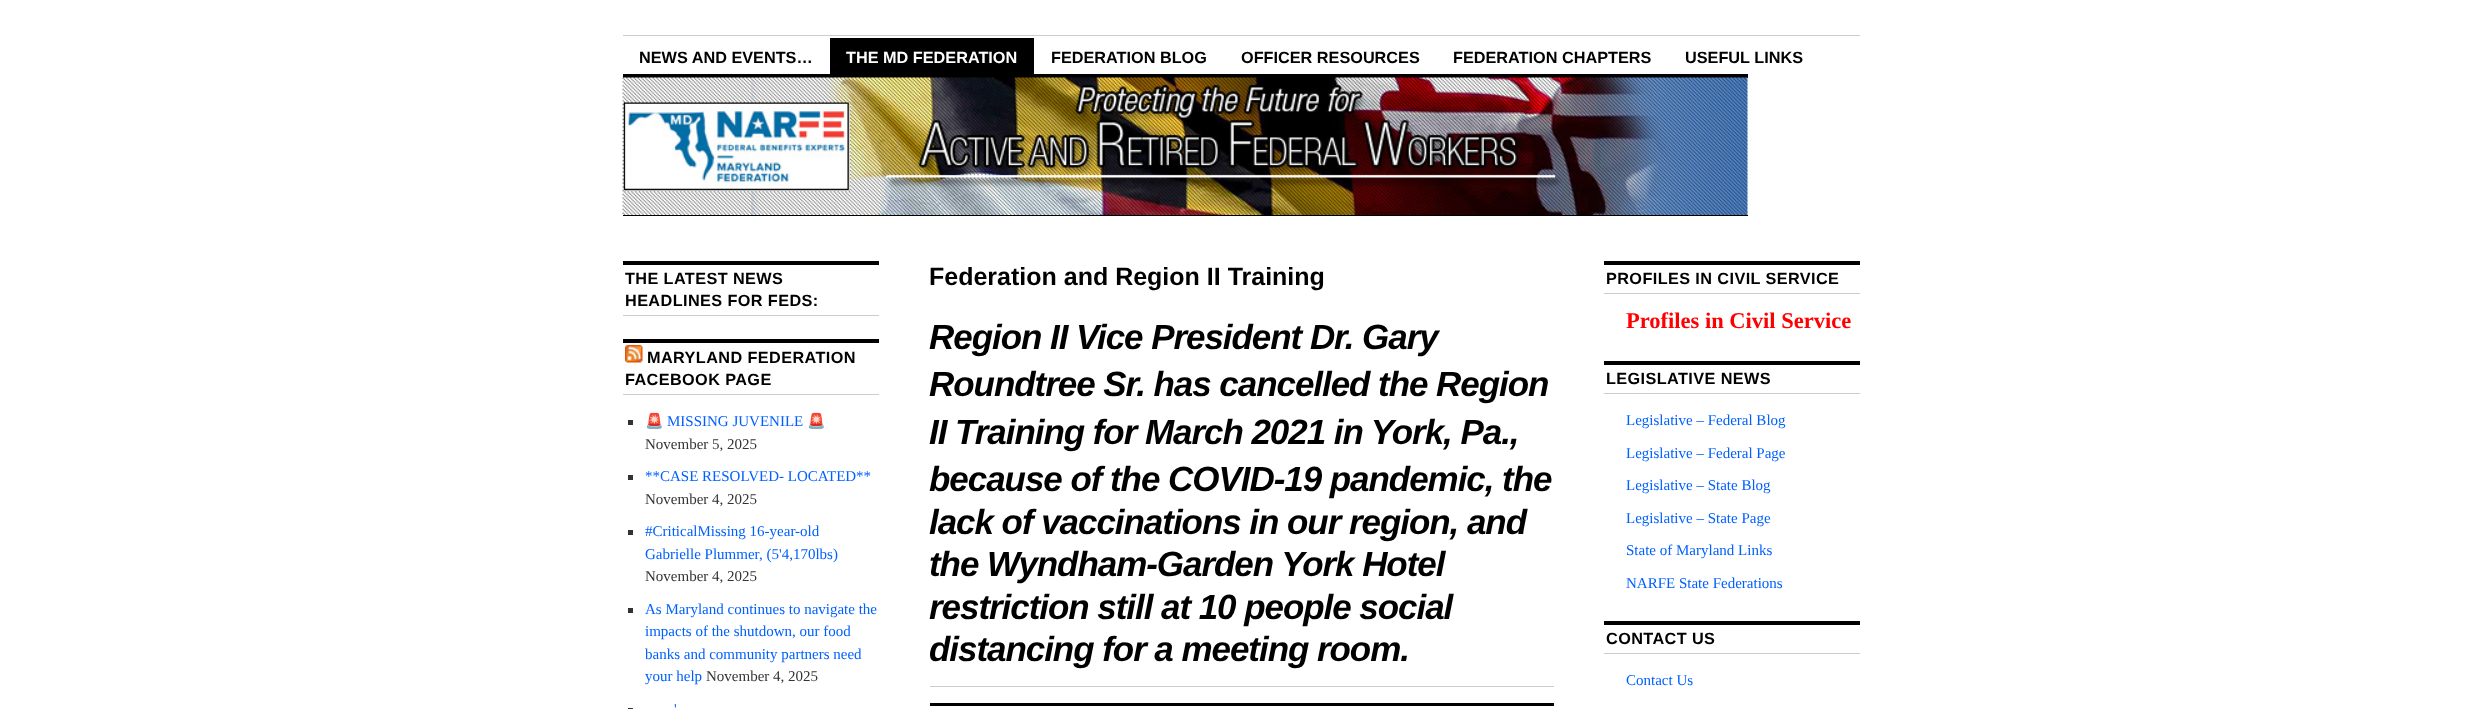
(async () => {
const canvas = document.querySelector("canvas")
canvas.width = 2482
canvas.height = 709
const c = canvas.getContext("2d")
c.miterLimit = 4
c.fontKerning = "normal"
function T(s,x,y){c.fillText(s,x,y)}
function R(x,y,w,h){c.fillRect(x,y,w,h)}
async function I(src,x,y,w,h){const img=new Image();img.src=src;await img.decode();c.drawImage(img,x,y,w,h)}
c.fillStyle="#fff"
R(0,0,2482,709)
c.fillStyle="#ccc"
R(623,35,1237,1)
c.font="bold 16.25px Liberation Sans"
c.fillStyle="#000"
T("NEWS AND EVENTS…",639,63)
R(830,38,204,36)
c.fillStyle="#fff"
T("THE MD FEDERATION",846,63)
c.fillStyle="#000"
T("FEDERATION BLOG",1051,63)
T("OFFICER RESOURCES",1241,63)
T("FEDERATION CHAPTERS",1453,63)
T("USEFUL LINKS",1685,63)
R(623,74,1125,4)
await I("1.png",622,77,1126,138)
R(623,215,1125,1)
R(623,261,256,4)
c.fillStyle="#ccc"
R(623,315,256,1)
c.letterSpacing="0.4px"
c.fillStyle="#000"
T("THE LATEST NEWS",625,284)
T("HEADLINES FOR FEDS:",625,306)
R(623,339,256,4)
c.fillStyle="#ccc"
R(623,394,256,1)
await I("2.png",625,345,18,18)
c.fillStyle="#000"
T("MARYLAND FEDERATION",647,363)
T("FACEBOOK PAGE",625,385)
c.fillStyle="#333"
R(628,420,5,5)
c.letterSpacing="0px"
c.font="15px Noto Color Emoji"
c.fillStyle="#0060ff"
T("🚨",645,426)
c.font="15px Liberation Serif"
T("MISSING JUVENILE",667,426)
c.font="15px Noto Color Emoji"
T("🚨",807,426)
c.font="15px Liberation Serif"
c.fillStyle="#333"
T("November 5, 2025",645,449)
R(628,475,5,5)
c.fillStyle="#0060ff"
T("**CASE RESOLVED- LOCATED**",645,481)
c.fillStyle="#333"
T("November 4, 2025",645,504)
R(628,530,5,5)
c.fillStyle="#0060ff"
T("#CriticalMissing 16-year-old",645,536)
T("Gabrielle Plummer, (5'4,170lbs)",645,559)
c.fillStyle="#333"
T("November 4, 2025",645,581)
R(628,608,5,5)
c.fillStyle="#0060ff"
T("As Maryland continues to navigate the",645,614)
T("impacts of the shutdown, our food",645,636)
T("banks and community partners need",645,659)
T("your help",645,681)
c.fillStyle="#333"
T("November 4, 2025",706,681)
c.fillStyle="#0060ff"
T("'",674,714)
c.fillStyle="#333"
R(628,708,5,1)
c.font="bold 25px Liberation Sans"
c.fillStyle="#000"
T("Federation and Region II Training",929,285)
c.fillStyle="#ccc"
R(930,686,624,1)
c.letterSpacing="-1.05px"
c.font="italic bold 35px Liberation Sans"
c.fillStyle="#000"
T("Region II Vice President Dr. Gary",929,349)
T("Roundtree Sr. has cancelled the Region",929,396)
T("II Training for March 2021 in York, Pa.,",929,444)
T("because of the COVID-19 pandemic, the",929,491)
T("lack of vaccinations in our region, and",929,534)
T("the Wyndham-Garden York Hotel",929,576)
T("restriction still at 10 people social",929,619)
T("distancing for a meeting room.",929,661)
R(930,703,624,3)
R(1604,261,256,4)
c.fillStyle="#ccc"
R(1604,293,256,1)
c.letterSpacing="0.4px"
c.font="bold 16.25px Liberation Sans"
c.fillStyle="#000"
T("PROFILES IN CIVIL SERVICE",1606,284)
c.letterSpacing="0px"
c.font="bold 22.5px Liberation Serif"
c.fillStyle="#f00"
T("Profiles in Civil Service",1626,328)
c.fillStyle="#000"
R(1604,361,256,4)
c.fillStyle="#ccc"
R(1604,393,256,1)
c.letterSpacing="0.4px"
c.font="bold 16.25px Liberation Sans"
c.fillStyle="#000"
T("LEGISLATIVE NEWS",1606,384)
c.letterSpacing="0px"
c.font="15px Liberation Serif"
c.fillStyle="#0060ff"
T("Legislative – Federal Blog",1626,425)
T("Legislative – Federal Page",1626,458)
T("Legislative – State Blog",1626,490)
T("Legislative – State Page",1626,523)
T("State of Maryland Links",1626,555)
T("NARFE State Federations",1626,588)
c.fillStyle="#000"
R(1604,621,256,4)
c.fillStyle="#ccc"
R(1604,653,256,1)
c.letterSpacing="0.4px"
c.font="bold 16.25px Liberation Sans"
c.fillStyle="#000"
T("CONTACT US",1606,644)
c.letterSpacing="0px"
c.font="15px Liberation Serif"
c.fillStyle="#0060ff"
T("Contact Us",1626,685)
})()
